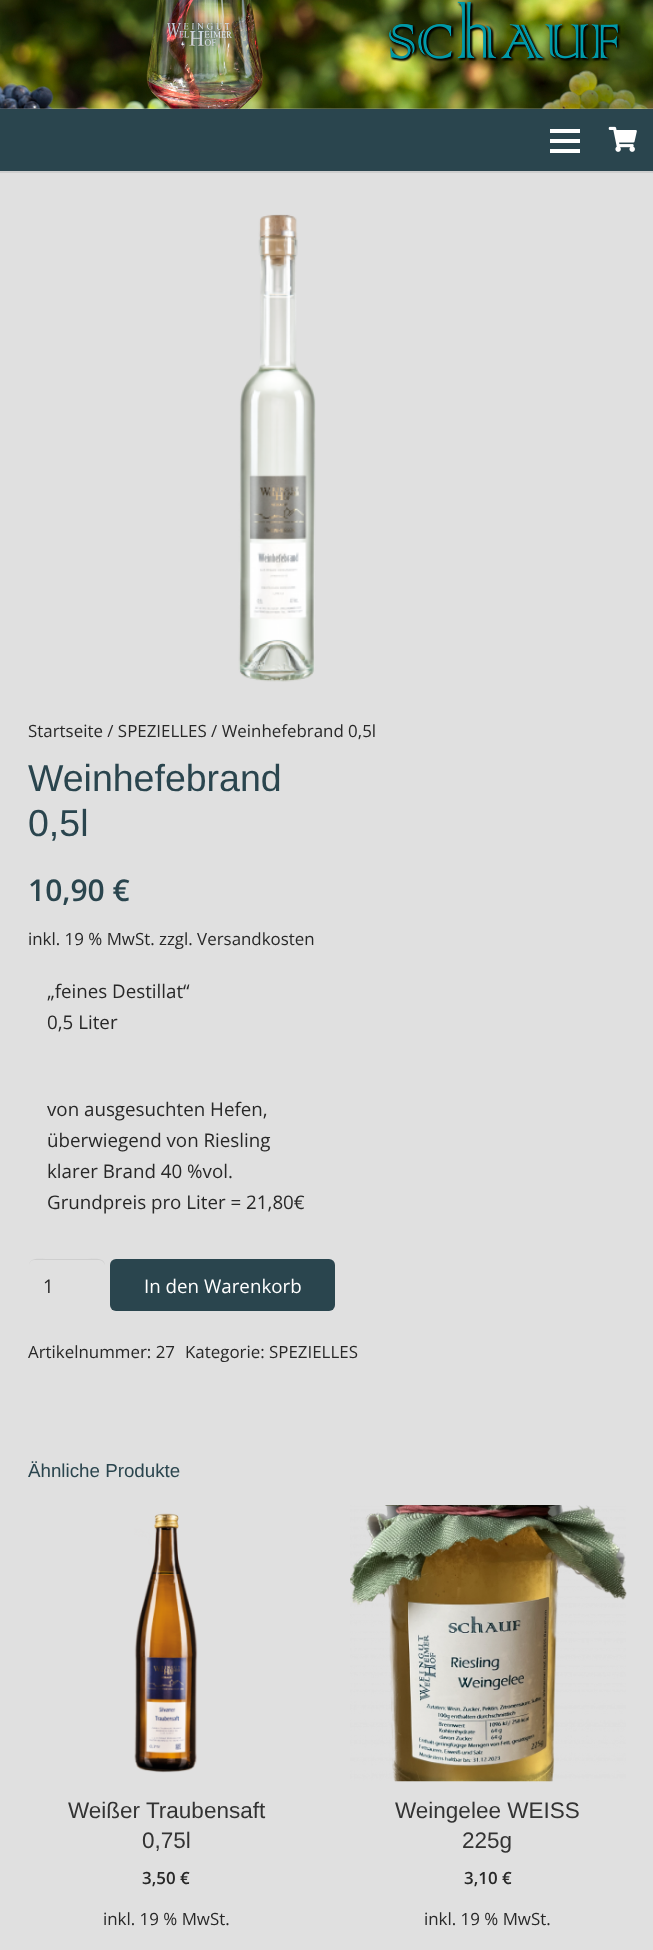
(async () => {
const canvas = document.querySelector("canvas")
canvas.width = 653
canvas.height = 1950
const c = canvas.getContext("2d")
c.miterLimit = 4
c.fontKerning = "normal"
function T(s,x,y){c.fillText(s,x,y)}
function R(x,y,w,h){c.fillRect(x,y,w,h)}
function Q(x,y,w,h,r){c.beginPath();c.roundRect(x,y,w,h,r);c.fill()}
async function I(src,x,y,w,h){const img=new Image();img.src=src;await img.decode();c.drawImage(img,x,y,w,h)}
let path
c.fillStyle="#e0e0e0"
R(0,0,653,1950)
await I("1.png",0,0,653,109)
c.fillStyle="#cecece"
path = new Path2D("M0 171v2h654v-63v61z")
c.fill(path)
c.fillStyle="#2a454e"
R(0,109,653,62)
c.fillStyle="#fff"
R(550,139,30,4)
R(550,129,30,4)
R(550,149,30,4)
await I("2.png",608,126,29,26)
await I("3.png",238,214,78,468)
c.font="16.9px Open Sans"
c.fillStyle="#282828"
T("Startseite / SPEZIELLES / Weinhefebrand 0,5l",28,737)
c.font="37.5px Liberation Sans"
c.fillStyle="#2a454e"
T("Weinhefebrand",28,791)
T("0,5l",28,836)
c.font="600 30px Open Sans"
T("10,90 €",28,901)
c.font="16.9px Open Sans"
c.fillStyle="#282828"
T("inkl. 19 % MwSt. zzgl. Versandkosten",28,945)
c.font="18.75px Open Sans"
T("„feines Destillat“",47,998)
T("0,5 Liter",47,1029)
T("von ausgesuchten Hefen,",47,1116)
T("überwiegend von Riesling",47,1147)
T("klarer Brand 40 %vol.",47,1178)
T("Grundpreis pro Liter = 21,80€",47,1209)
c.fillStyle="#cecece"
path = new Path2D("M34 1260h65c3 0 6 3 6 6c0-9-10-7-17-7h-42c-7 0-17-2-17 7c0-3 2-6 5-6z")
c.fill(path)
c.fillStyle="#282828"
T("1",43,1293)
c.fillStyle="#2a454e"
Q(110,1259,225,52,6)
c.fillStyle="#fff"
T("In den Warenkorb",144,1293)
c.font="16.9px Open Sans"
c.fillStyle="#282828"
T("Artikelnummer: 27",28,1358)
T("Kategorie: SPEZIELLES",185,1358)
c.font="18.75px Liberation Sans"
c.fillStyle="#2a454e"
T("Ähnliche Produkte",28,1477)
await I("4.png",134,1513,64,260)
c.font="22.5px Liberation Sans"
c.fillStyle="#333"
T("Weißer Traubensaft",68,1818)
T("0,75l",142,1848)
c.font="600 16.9px Open Sans"
c.fillStyle="#282828"
T("3,50 €",142,1884)
c.font="16.9px Open Sans"
T("inkl. 19 % MwSt.",103,1925)
await I("5.png",350,1505,277,277)
c.font="22.5px Liberation Sans"
c.fillStyle="#333"
T("Weingelee WEISS",395,1818)
T("225g",462,1848)
c.font="600 16.9px Open Sans"
c.fillStyle="#282828"
T("3,10 €",464,1884)
c.font="16.9px Open Sans"
T("inkl. 19 % MwSt.",424,1925)
})()
